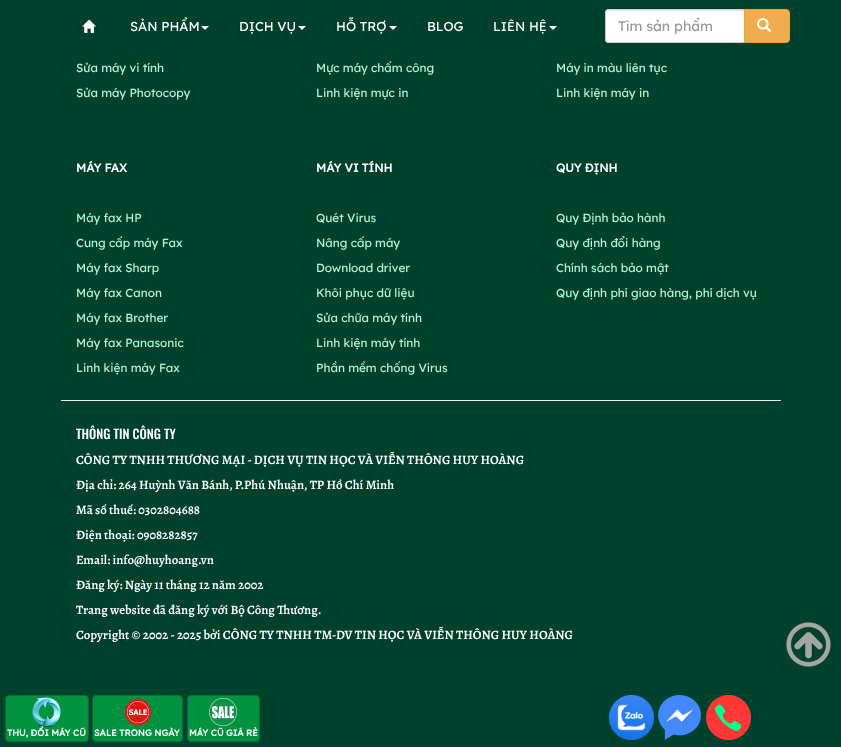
(async () => {
const canvas = document.querySelector("canvas")
canvas.width = 841
canvas.height = 747
const c = canvas.getContext("2d")
c.miterLimit = 4
c.fontKerning = "normal"
function T(s,x,y){c.fillText(s,x,y)}
function R(x,y,w,h){c.fillRect(x,y,w,h)}
async function I(src,x,y,w,h){const img=new Image();img.src=src;await img.decode();c.drawImage(img,x,y,w,h)}
let path
c.fillStyle="#00412d"
R(0,0,841,747)
await I("1.png",82,19,14,14)
c.font="13px Lexend"
c.fillStyle="#fff"
T("SẢN PHẨM",130,31)
path = new Path2D("M201 26h8l-4 4z")
c.fill(path)
T("DỊCH VỤ",239,31)
path = new Path2D("M298 26h8l-4 4z")
c.fill(path)
T("HỖ TRỢ",336,31)
path = new Path2D("M389 26h8l-4 4z")
c.fill(path)
T("BLOG",427,31)
T("LIÊN HỆ",493,31)
path = new Path2D("M549 26h8l-4 4z")
c.fill(path)
c.beginPath()
c.roundRect(605,9,140,34,[4,0,0,4])
c.fill()
c.fillStyle="#ececec"
path = new Path2D("M609 11h135v-1h-135c-2 0-3 2-3 4c0-2 1-3 3-3z")
c.fill(path)
c.beginPath()
c.roundRect(605.5,9.5,139,33,[3.5,0,0,3.5])
c.strokeStyle="#ccc"
c.stroke()
c.font="14px Lexend"
c.fillStyle="#999"
T("Tìm sản phẩm",618,31)
c.fillStyle="#f0ad4e"
c.beginPath()
c.roundRect(744.5,9.5,45,33,[0,3.5,3.5,0])
c.fill()
c.strokeStyle="#eea236"
c.stroke()
await I("2.png",757,18,15,14)
c.font="11.75px Lexend"
c.fillStyle="#b3f5d5"
T("Sửa máy vi tính",76,72)
T("Sửa máy Photocopy",76,97)
T("Mực máy chấm công",316,72)
T("Linh kiện mực in",316,97)
T("Máy in màu liên tục",556,72)
T("Linh kiện máy in",556,97)
c.font="bold 11.75px Lexend"
c.fillStyle="#fff"
T("MÁY FAX",76,172)
c.font="11.75px Lexend"
c.fillStyle="#b3f5d5"
T("Máy fax HP",76,222)
T("Cung cấp máy Fax",76,247)
T("Máy fax Sharp",76,272)
T("Máy fax Canon",76,297)
T("Máy fax Brother",76,322)
T("Máy fax Panasonic",76,347)
T("Linh kiện máy Fax",76,372)
c.font="bold 11.75px Lexend"
c.fillStyle="#fff"
T("MÁY VI TÍNH",316,172)
c.font="11.75px Lexend"
c.fillStyle="#b3f5d5"
T("Quét Virus",316,222)
T("Nâng cấp máy",316,247)
T("Download driver",316,272)
T("Khôi phục dữ liệu",316,297)
T("Sửa chữa máy tính",316,322)
T("Linh kiện máy tính",316,347)
T("Phần mềm chống Virus",316,372)
c.font="bold 11.75px Lexend"
c.fillStyle="#fff"
T("QUY ĐỊNH",556,172)
c.font="11.75px Lexend"
c.fillStyle="#b3f5d5"
T("Quy Định bảo hành",556,222)
T("Quy định đổi hàng",556,247)
T("Chính sách bảo mật",556,272)
T("Quy định phí giao hàng, phí dịch vụ",556,297)
c.fillStyle="#eee"
R(61,400,720,1)
c.font="500 12.8px Oswald"
c.fillStyle="#fff"
T("THÔNG TIN CÔNG TY",76,439)
c.font="600 12.8px Alegreya"
T("CÔNG TY TNHH THƯƠNG MẠI - DỊCH VỤ TIN HỌC VÀ VIỄN THÔNG HUY HOÀNG",76,464)
T("Địa chỉ: 264 Huỳnh Văn Bánh, P.Phú Nhuận, TP Hồ Chí Minh",76,489)
T("Mã số thuế: 0302804688",76,514)
T("Điện thoại: 0908282857",76,539)
T("Email: info@huyhoang.vn",76,564)
T("Đăng ký: Ngày 11 tháng 12 năm 2002",76,589)
T("Trang website đã đăng ký với Bộ Công Thương.",76,614)
T("Copyright © 2002 - 2025 bởi CÔNG TY TNHH TM-DV TIN HỌC VÀ VIỄN THÔNG HUY HOÀNG",76,639)
await I("3.png",786,622,45,45)
c.fillStyle="#019240"
c.beginPath()
c.roundRect(5.5,695.5,83,46,3.5)
c.fill()
c.strokeStyle="#017234"
c.stroke()
await I("4.png",32,697,29,30)
c.font="bold 9px Lexend"
c.fillStyle="#fff"
T("THU, ĐỔI MÁY CŨ",7,736)
c.fillStyle="#019240"
c.beginPath()
c.roundRect(92.5,695.5,90,46,3.5)
c.fill()
c.stroke()
await I("5.png",124,698,28,28)
c.fillStyle="#fff"
T("SALE TRONG NGÀY",94,736)
c.fillStyle="#019240"
c.beginPath()
c.roundRect(187.5,695.5,72,46,3.5)
c.fill()
c.stroke()
await I("6.png",209,698,28,29)
c.fillStyle="#fff"
T("MÁY CŨ GIÁ RẺ",189,736)
await I("7.png",609,695,45,45)
await I("8.png",658,695,43,45)
await I("9.png",706,695,45,45)
})()
